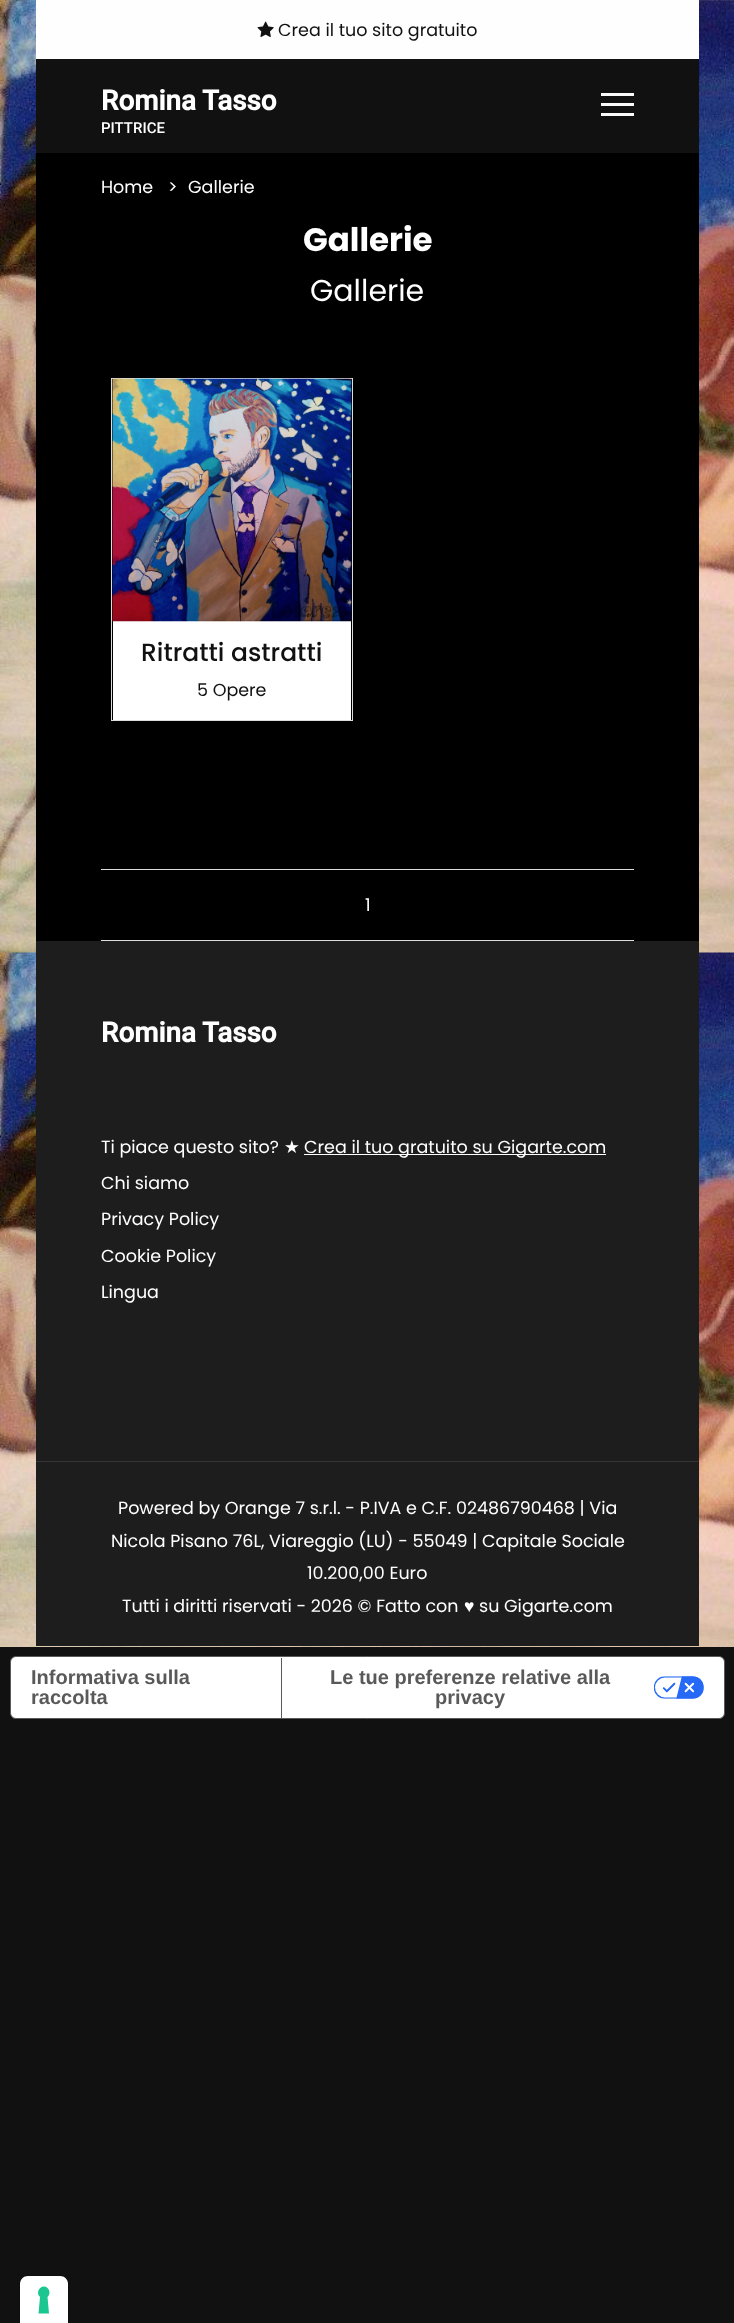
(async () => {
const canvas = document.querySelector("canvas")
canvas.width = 734
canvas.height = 2323
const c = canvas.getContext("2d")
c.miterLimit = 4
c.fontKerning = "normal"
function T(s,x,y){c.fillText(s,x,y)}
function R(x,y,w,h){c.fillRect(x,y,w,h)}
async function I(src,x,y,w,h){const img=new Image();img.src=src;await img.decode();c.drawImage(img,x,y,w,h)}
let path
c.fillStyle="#111"
R(0,0,734,2323)
await I("1.png",0,0,734,1647)
c.fillStyle="#000"
R(36,153,663,788)
c.fillStyle="#fefefe"
R(36,0,663,59)
await I("2.png",257,21,17,16)
c.font="17.5px Poppins"
c.fillStyle="#111"
T("Crea il tuo sito gratuito",278,36)
R(36,59,663,94)
c.font="bold 27.75px Roboto"
c.fillStyle="#fff"
T("Romina Tasso",101,110)
c.font="500 15px Roboto"
T("PITTRICE",101,133)
c.fillStyle="#fafafa"
R(601,103,33,3)
R(601,93,33,3)
R(601,113,33,3)
c.font="17.5px Poppins"
c.fillStyle="#fff"
T("Home",101,193)
T(">",168,193)
T("Gallerie",188,193)
c.font="bold 32.5px Poppins"
T("Gallerie",303,251)
c.font="30px Poppins"
T("Gallerie",310,301)
c.strokeStyle="#ddd"
c.strokeRect(111.5,378.5,241,342)
R(113,621,238,99)
await I("3.png",112,378,240,244)
c.font="500 25px Poppins"
c.fillStyle="#111"
T("Ritratti astratti",141,661)
c.font="17.5px Poppins"
T("5 Opere",197,696)
c.fillStyle="#ddd"
R(101,869,533,1)
R(101,940,533,1)
c.fillStyle="#fff"
T("1",365,911)
c.fillStyle="#1d1d1d"
R(36,941,663,705)
c.font="bold 27.75px Roboto"
c.fillStyle="#fff"
T("Romina Tasso",101,1042)
c.font="17.5px Poppins"
T("Ti piace questo sito?",101,1153)
c.font="17.5px DejaVu Sans"
T("★",284,1153)
R(304,1154,302,1)
c.font="17.5px Poppins"
T("Crea il tuo gratuito su Gigarte.com",304,1153)
T("Chi siamo",101,1189)
T("Privacy Policy",101,1225)
T("Cookie Policy",101,1262)
T("Lingua",101,1298)
c.fillStyle="#343434"
R(36,1461,663,1)
c.fillStyle="#fff"
T("Powered by Orange 7 s.r.l. - P.IVA e C.F. 02486790468 | Via",118,1514)
T("Nicola Pisano 76L, Viareggio (LU) - 55049 | Capitale Sociale",111,1547)
T("10.200,00 Euro",307,1579)
T("Tutti i diritti riservati - 2026 © Fatto con",122,1612)
c.font="17.5px Liberation Sans"
T("♥",464,1612)
c.font="17.5px Poppins"
T("su Gigarte.com",479,1612)
c.beginPath()
c.roundRect(10.5,1656.5,714,62,5.5)
c.fill()
c.strokeStyle="#595959"
c.stroke()
c.font="bold 20px Liberation Sans"
c.fillStyle="#595959"
T("Informativa sulla",31,1684)
T("raccolta",31,1704)
R(281,1658,1,60)
T("Le tue preferenze relative alla",330,1684)
await I("4.png",654,1676,50,23)
T("privacy",435,1704)
path = new Path2D("M28 2275.5h32c4.5 0 8.5 4 8.5 8.5v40.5h-49v-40.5c0-4.5 4-8.5 8.5-8.5z")
c.strokeStyle="#0e0e0e"
c.stroke(path)
c.fillStyle="#fff"
path = new Path2D("M28 2276h32c4.5 0 8 3.5 8 8v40h-48v-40c0-4.5 3.5-8 8-8z")
c.fill(path)
c.fillStyle="#1cc691"
path = new Path2D("M44 2286.5c5 0 7.5 7 3.5 10.5l1.5 16.5h-10.5l1.5-16.5c-4-3.5-1.5-10.5 4-10.5z")
c.fill(path,"evenodd")
})()
